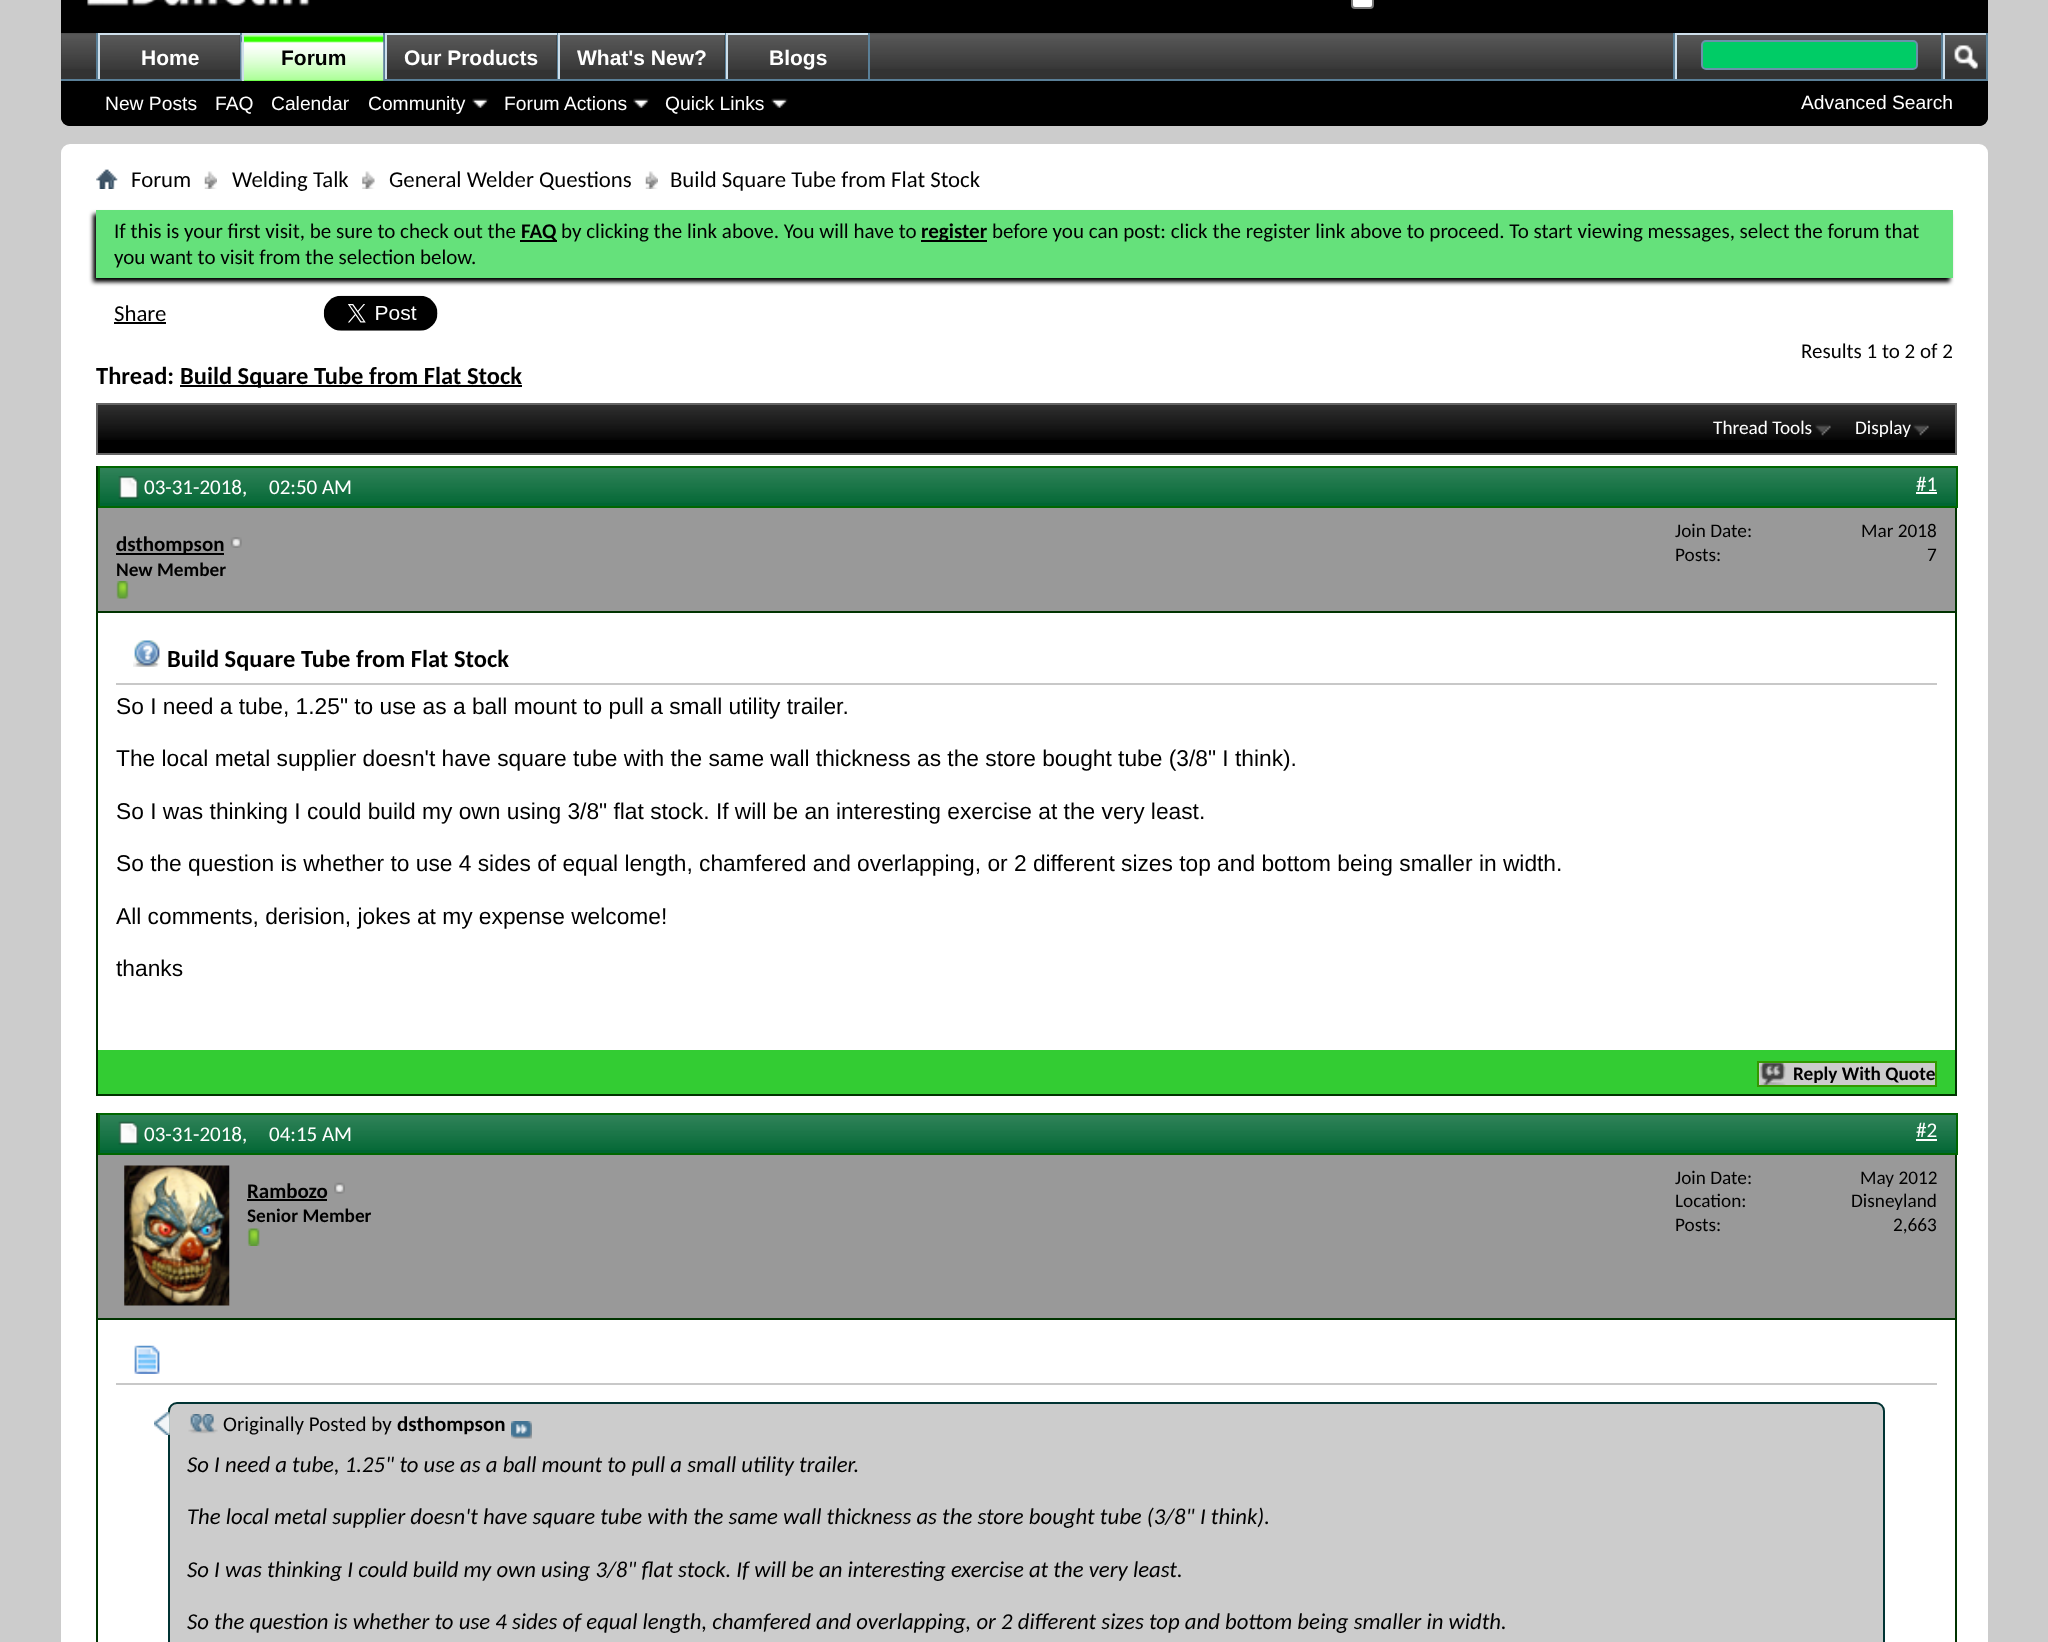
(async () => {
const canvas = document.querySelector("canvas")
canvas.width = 2048
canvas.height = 1642
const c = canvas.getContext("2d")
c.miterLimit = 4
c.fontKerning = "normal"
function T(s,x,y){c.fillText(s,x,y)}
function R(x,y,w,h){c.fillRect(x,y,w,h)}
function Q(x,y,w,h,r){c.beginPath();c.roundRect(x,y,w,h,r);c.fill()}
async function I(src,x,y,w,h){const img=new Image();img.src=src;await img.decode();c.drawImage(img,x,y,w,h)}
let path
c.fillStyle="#ccc"
R(0,0,2048,1642)
c.fillStyle="#000"
path = new Path2D("M61-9h1927v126c0 5-4 9-9 9h-1909c-5 0-9-4-9-9z")
c.fill(path)
await I("1.png",87,0,223,6)
c.fillStyle="#fff"
c.beginPath()
c.roundRect(1352,-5,21,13,3)
c.fill()
c.strokeStyle="#767676"
c.lineWidth=2
c.stroke()
c.fillStyle="#000"
c.beginPath()
c.roundRect(61,33,1927,93,[0,0,9,9])
c.fill()
c.fillStyle="#333"
R(61,33,1925,46)
await I("2.png",61,33,1925,36)
c.fillStyle="#5a7f97"
R(240,33,2,48)
R(96,33,2,48)
c.fillStyle="#333"
R(100,35,140,34)
await I("3.png",100,35,140,35)
c.fillStyle="#cedfeb"
R(98,33,142,2)
R(98,33,2,48)
c.font="bold 21px Liberation Sans"
c.fillStyle="#fff"
T("Home",141,65)
c.fillStyle="#5a7f97"
R(383,33,2,46)
R(557,33,1,48)
c.fillStyle="#cedfeb"
R(385,33,172,2)
R(385,33,2,48)
c.fillStyle="#5a7f97"
R(725,33,1,48)
c.fillStyle="#cedfeb"
R(558,33,167,2)
R(558,33,2,48)
c.fillStyle="#5a7f97"
R(868,33,2,48)
c.fillStyle="#cedfeb"
R(726,33,142,2)
R(726,33,2,48)
c.fillStyle="#5a7f97"
R(61,79,1927,2)
c.fillStyle="#3f0"
R(244,35,139,46)
await I("4.png",241,35,143,46)
c.fillStyle="#cedfeb"
R(242,33,141,2)
R(242,33,2,48)
c.fillStyle="#000"
T("Forum",281,65)
c.fillStyle="#333"
R(387,35,170,34)
await I("5.png",387,35,170,35)
c.fillStyle="#fff"
T("Our Products",404,65)
c.fillStyle="#333"
R(560,35,165,34)
await I("6.png",560,35,165,35)
c.fillStyle="#fff"
T("What's New?",577,65)
c.fillStyle="#333"
R(728,35,140,34)
await I("7.png",728,35,140,35)
c.fillStyle="#fff"
T("Blogs",769,65)
c.font="19.25px Liberation Sans"
T("New Posts",105,110)
T("FAQ",215,110)
T("Calendar",271,110)
T("Community",368,110)
await I("8.png",472,98,17,10)
T("Forum Actions",504,110)
await I("9.png",633,98,17,10)
T("Quick Links",665,110)
await I("10.png",771,98,17,10)
c.fillStyle="#5a7f97"
R(1673,33,2,46)
c.fillStyle="#cedfeb"
R(1675,33,266,2)
R(1675,33,2,46)
c.fillStyle="#0c6"
c.beginPath()
c.roundRect(1702,41,215,28,4)
c.fill()
c.strokeStyle="#6b91ab"
c.stroke()
c.fillStyle="#5a7f97"
R(1986,33,2,46)
R(1941,33,2,46)
c.fillStyle="#cedfeb"
R(1943,33,43,2)
R(1943,33,2,46)
await I("11.png",1954,45,24,25)
c.fillStyle="#fff"
T("Advanced Search",1801,109)
Q(61,144,1927,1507,9)
await I("12.png",96,169,22,20)
await I("13.png",204,171,13,18)
c.font="22.75px Carlito"
c.fillStyle="#000"
T("Forum",131,187)
await I("14.png",362,171,13,18)
T("Welding Talk",232,187)
await I("15.png",645,171,13,18)
T("General Welder Questions",389,187)
T("Build Square Tube from Flat Stock",670,187)
c.filter="blur(2px)"
c.beginPath()
c.rect(93,214,1857,68)
c.fill()
c.filter="none"
c.fillStyle="#65e17b"
R(96,210,1857,68)
c.font="21px Carlito"
c.fillStyle="#000"
T("If this is your first visit, be sure to check out the",114,238)
R(520,240,37,2)
c.font="bold 21px Carlito"
T("FAQ",521,238)
c.font="21px Carlito"
T("by clicking the link above. You will have to",561,238)
R(921,240,66,2)
c.font="bold 21px Carlito"
T("register",921,238)
c.font="21px Carlito"
T("before you can post: click the register link above to proceed. To start viewing messages, select the forum that",992,238)
T("you want to visit from the selection below.",114,264)
c.font="22.75px Carlito"
T("Share",114,321)
R(114,322,52,2)
await I("16.png",323,295,115,36)
c.font="21px Carlito"
T("Results 1 to 2 of 2",1801,358)
c.font="bold 24.5px Carlito"
T("Thread:",96,384)
R(180,385,342,2)
T("Build Square Tube from Flat Stock",180,384)
R(98,405,1857,48)
await I("17.png",98,405,1857,35)
c.strokeStyle="#666"
c.strokeRect(97,404,1859,50)
await I("18.png",1815,424,16,12)
c.font="19.25px Carlito"
c.fillStyle="#fff"
T("Thread Tools",1713,434)
await I("18.png",1913,424,16,12)
T("Display",1855,434)
c.strokeStyle="#030"
c.strokeRect(97,467,1859,628)
c.fillStyle="#063"
R(100,468,1856,38)
await I("19.png",100,468,1856,35)
c.strokeStyle="#060"
c.strokeRect(99,467,1858,40)
await I("20.png",118,476,21,23)
c.font="21px Carlito"
c.fillStyle="#fff"
T("03-31-2018,",144,494)
T("02:50 AM",269,494)
T("#1",1916,491)
R(1916,492,21,2)
c.fillStyle="#999"
R(98,508,1857,103)
c.fillStyle="#030"
R(98,611,1857,2)
c.fillStyle="#000"
R(116,553,108,2)
c.font="bold 21px Carlito"
T("dsthompson",116,551)
await I("21.png",230,537,12,11)
c.font="bold 19.25px Carlito"
T("New Member",116,576)
await I("22.png",116,581,13,18)
c.font="19.25px Carlito"
T("Join Date:",1675,537)
T("Mar 2018",1861,537)
T("Posts:",1675,561)
T("7",1927,561)
c.fillStyle="#c8c8c8"
R(116,683,1821,2)
await I("23.png",133,640,27,27)
c.font="bold 24.5px Carlito"
c.fillStyle="#000"
T("Build Square Tube from Flat Stock",167,667)
c.font="22.75px Liberation Sans"
T("So I need a tube, 1.25\" to use as a ball mount to pull a small utility trailer.",116,714)
T("The local metal supplier doesn't have square tube with the same wall thickness as the store bought tube (3/8\" I think).",116,766)
T("So I was thinking I could build my own using 3/8\" flat stock. If will be an interesting exercise at the very least.",116,819)
T("So the question is whether to use 4 sides of equal length, chamfered and overlapping, or 2 different sizes top and bottom being smaller in width.",116,871)
T("All comments, derision, jokes at my expense welcome!",116,924)
T("thanks",116,976)
c.fillStyle="#3c3"
R(98,1050,1857,44)
c.fillStyle="#ccc"
R(1759,1063,176,22)
await I("24.png",1760,1063,26,22)
c.strokeStyle="#390"
c.strokeRect(1758,1062,178,24)
c.font="bold 19.25px Carlito"
c.fillStyle="#000"
T("Reply With Quote",1793,1080)
c.strokeStyle="#030"
c.strokeRect(97,1114,1859,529)
c.fillStyle="#063"
R(100,1115,1856,38)
await I("25.png",100,1115,1856,35)
c.strokeStyle="#060"
c.strokeRect(99,1114,1858,40)
await I("26.png",118,1121,21,24)
c.font="21px Carlito"
c.fillStyle="#fff"
T("03-31-2018,",144,1141)
T("04:15 AM",269,1141)
T("#2",1916,1137)
R(1916,1139,21,2)
c.fillStyle="#999"
R(98,1155,1857,163)
c.fillStyle="#030"
R(98,1318,1857,2)
await I("27.png",124,1165,106,141)
c.font="bold 21px Carlito"
c.fillStyle="#000"
T("Rambozo",247,1198)
R(247,1199,80,2)
await I("28.png",334,1182,11,12)
c.font="bold 19.25px Carlito"
T("Senior Member",247,1222)
await I("29.png",247,1228,13,18)
c.font="19.25px Carlito"
T("Join Date:",1675,1184)
T("May 2012",1860,1184)
T("Location:",1675,1207)
T("Disneyland",1851,1207)
T("Posts:",1675,1231)
T("2,663",1893,1231)
c.fillStyle="#c8c8c8"
R(116,1383,1821,2)
await I("30.png",134,1345,26,29)
c.fillStyle="#ccc"
c.beginPath()
c.roundRect(169,1403,1715,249,8)
c.fill()
c.strokeStyle="#033"
c.stroke()
await I("31.png",154,1412,16,23)
await I("32.png",188,1414,30,20)
c.font="21px Carlito"
c.fillStyle="#000"
T("Originally Posted by",223,1431)
c.font="bold 21px Carlito"
T("dsthompson",397,1431)
await I("33.png",511,1421,21,18)
c.font="italic 22.75px Carlito"
T("So I need a tube, 1.25\" to use as a ball mount to pull a small utility trailer.",187,1472)
T("The local metal supplier doesn't have square tube with the same wall thickness as the store bought tube (3/8\" I think).",187,1524)
T("So I was thinking I could build my own using 3/8\" flat stock. If will be an interesting exercise at the very least.",187,1577)
T("So the question is whether to use 4 sides of equal length, chamfered and overlapping, or 2 different sizes top and bottom being smaller in width.",187,1629)
})()
